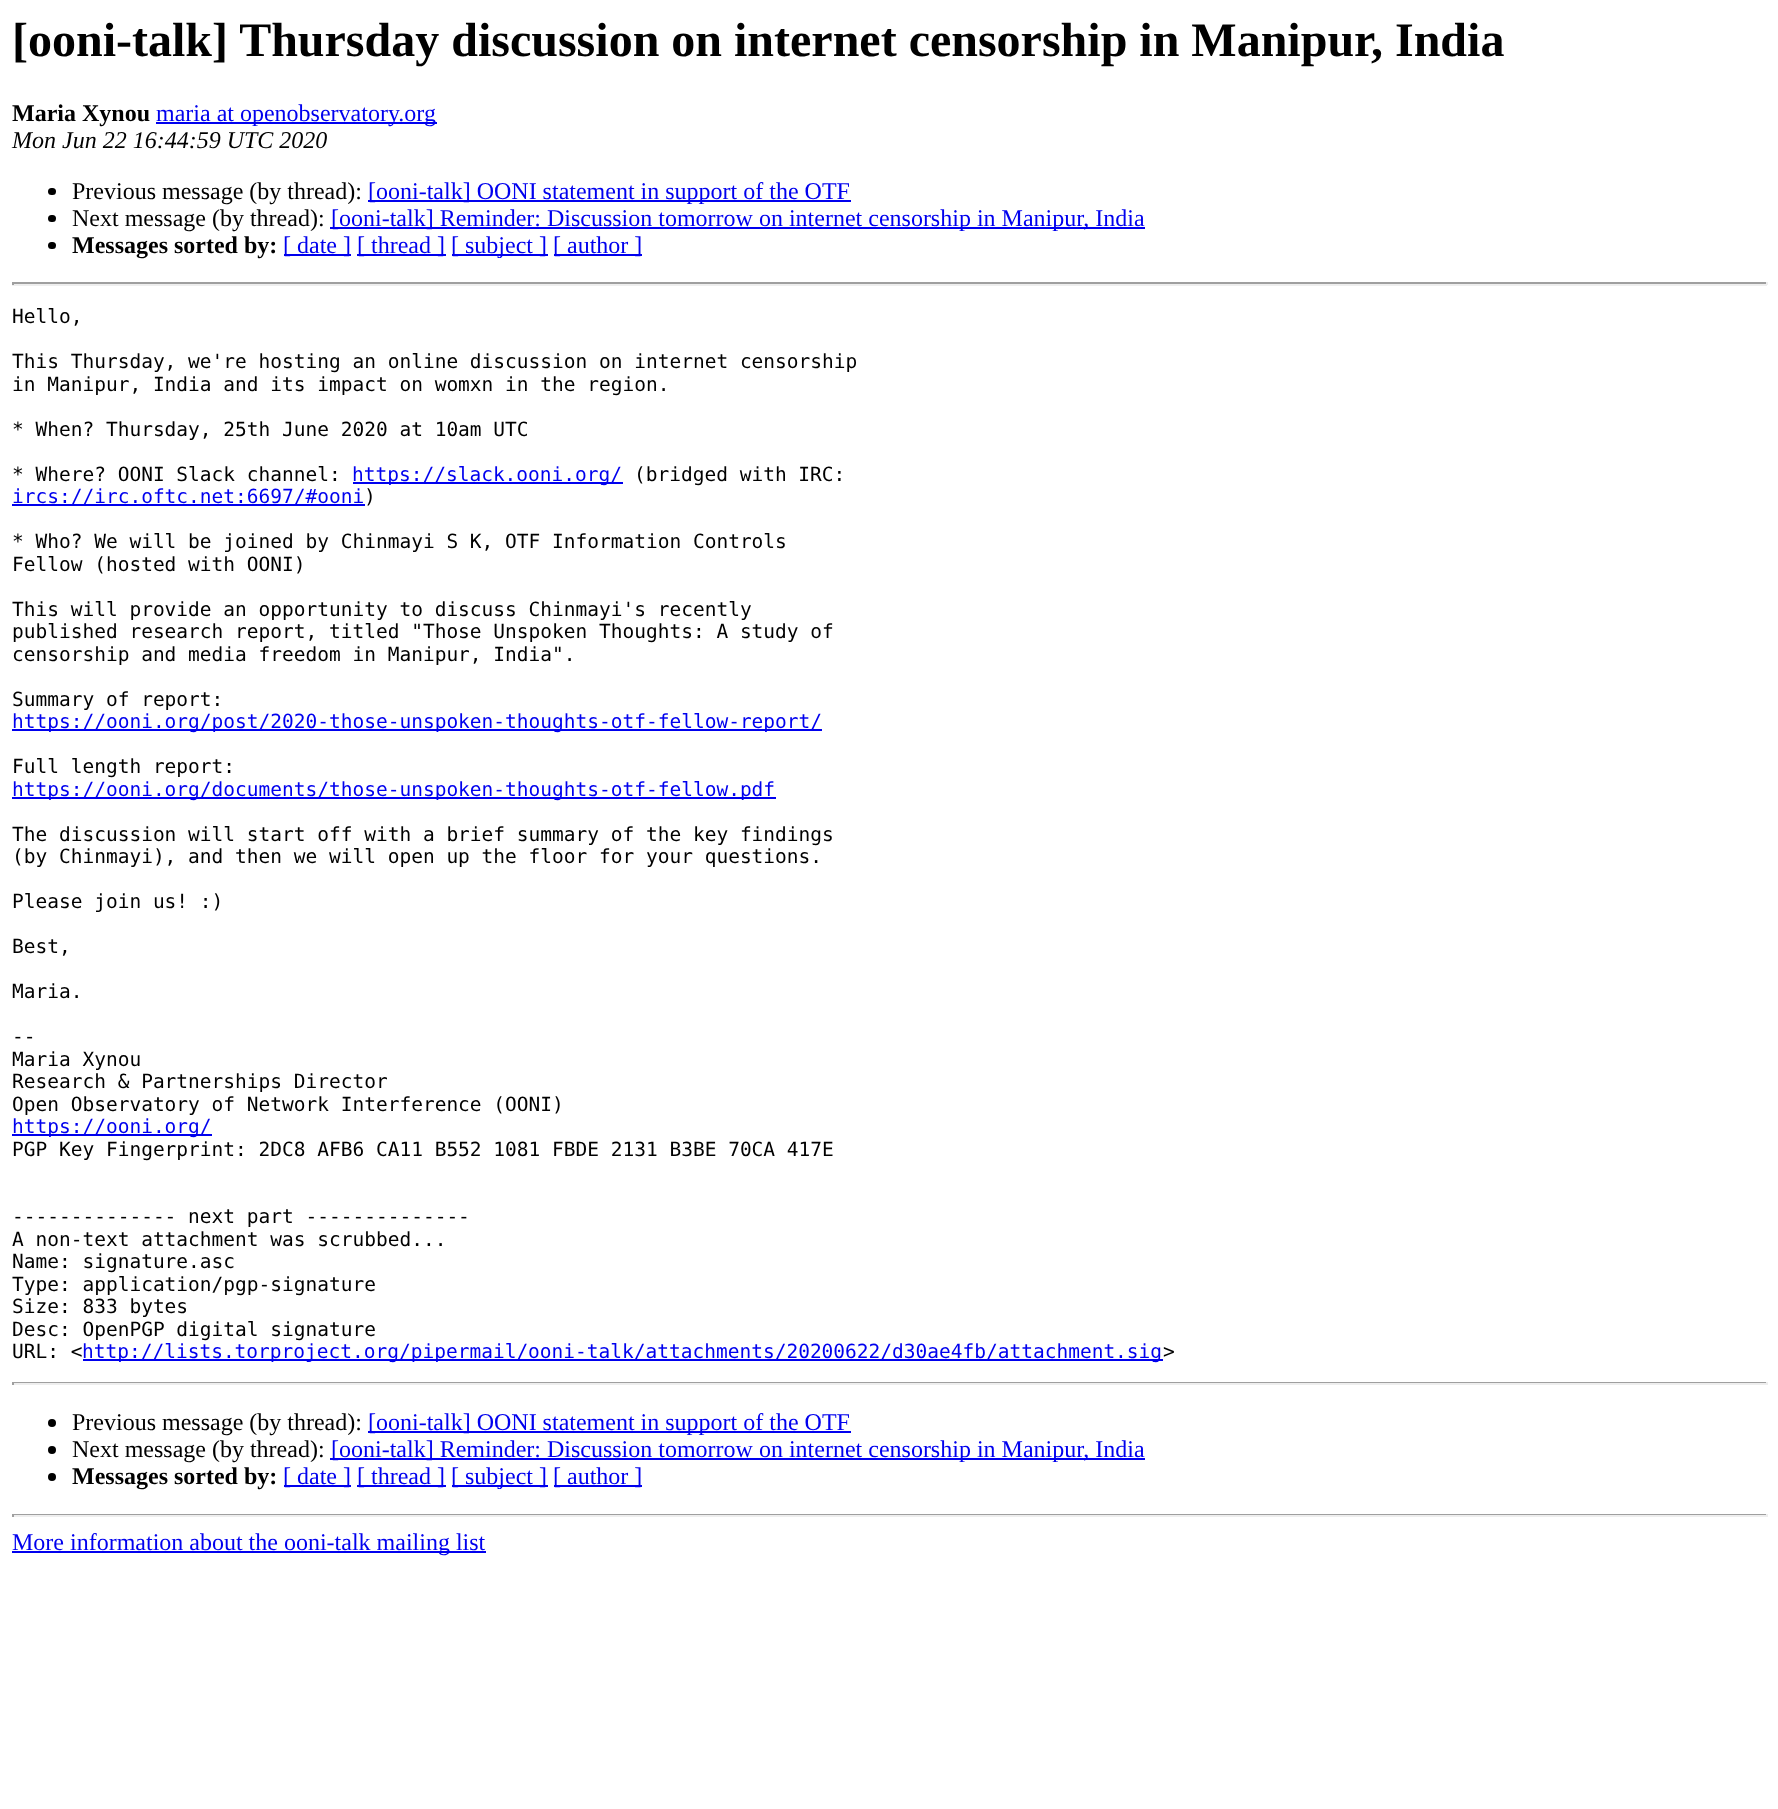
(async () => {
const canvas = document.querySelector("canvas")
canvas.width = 1778
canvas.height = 1809
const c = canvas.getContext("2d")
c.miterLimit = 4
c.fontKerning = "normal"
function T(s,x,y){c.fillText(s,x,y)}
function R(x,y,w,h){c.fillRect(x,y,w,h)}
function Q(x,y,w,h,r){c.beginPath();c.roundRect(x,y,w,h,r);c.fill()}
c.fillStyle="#fff"
R(0,0,1778,1809)
c.font="bold 48px Liberation Serif"
c.fillStyle="#000"
T("[ooni-talk] Thursday discussion on internet censorship in Manipur, India",12,56)
c.font="bold 24px Liberation Serif"
T("Maria Xynou",12,121)
c.fillStyle="#00e"
R(156,122,281,2)
c.font="24px Liberation Serif"
T("maria at openobservatory.org",156,121)
c.font="italic 24px Liberation Serif"
c.fillStyle="#000"
T("Mon Jun 22 16:44:59 UTC 2020",12,148)
Q(48,188,8,7,3.5)
c.font="24px Liberation Serif"
T("Previous message (by thread):",72,199)
c.fillStyle="#00e"
R(368,200,483,2)
T("[ooni-talk] OONI statement in support of the OTF",368,199)
c.fillStyle="#000"
Q(48,215,8,7,3.5)
T("Next message (by thread):",72,226)
c.fillStyle="#00e"
R(330,227,815,2)
T("[ooni-talk] Reminder: Discussion tomorrow on internet censorship in Manipur, India",331,226)
c.fillStyle="#000"
Q(48,242,8,7,3.5)
c.font="bold 24px Liberation Serif"
T("Messages sorted by:",72,253)
c.fillStyle="#00e"
R(284,254,67,2)
c.font="24px Liberation Serif"
T("[ date ]",283,253)
R(357,254,89,2)
T("[ thread ]",357,253)
R(452,254,96,2)
T("[ subject ]",451,253)
R(554,254,88,2)
T("[ author ]",553,253)
c.fillStyle="#9f9f9f"
R(12,282,1755,2)
c.fillStyle="#eee"
R(1766,282,2,3)
R(12,284,1755,2)
c.fillStyle="#9f9f9f"
R(12,282,2,3)
c.font="19.5px DejaVu Sans Mono"
c.fillStyle="#000"
T("Hello,",12,323)
T("This Thursday, we're hosting an online discussion on internet censorship",12,368)
T("in Manipur, India and its impact on womxn in the region.",12,391)
T("* When? Thursday, 25th June 2020 at 10am UTC",12,436)
T("* Where? OONI Slack channel:",12,481)
c.fillStyle="#00e"
R(353,482,270,2)
T("https://slack.ooni.org/",352,481)
c.fillStyle="#000"
T("(bridged with IRC:",634,481)
c.fillStyle="#00e"
R(12,504,353,2)
T("ircs://irc.oftc.net:6697/#ooni",12,503)
c.fillStyle="#000"
T(")",364,503)
T("* Who? We will be joined by Chinmayi S K, OTF Information Controls",12,548)
T("Fellow (hosted with OONI)",12,571)
T("This will provide an opportunity to discuss Chinmayi's recently",12,616)
T("published research report, titled \"Those Unspoken Thoughts: A study of",12,638)
T("censorship and media freedom in Manipur, India\".",12,661)
T("Summary of report:",12,706)
c.fillStyle="#00e"
R(12,729,810,2)
T("https://ooni.org/post/2020-those-unspoken-thoughts-otf-fellow-report/",12,728)
c.fillStyle="#000"
T("Full length report:",12,773)
c.fillStyle="#00e"
R(12,797,764,2)
T("https://ooni.org/documents/those-unspoken-thoughts-otf-fellow.pdf",12,796)
c.fillStyle="#000"
T("The discussion will start off with a brief summary of the key findings",12,841)
T("(by Chinmayi), and then we will open up the floor for your questions.",12,863)
T("Please join us! :)",12,908)
T("Best,",12,953)
T("Maria.",12,998)
T("--",12,1043)
T("Maria Xynou",12,1066)
T("Research & Partnerships Director",12,1088)
T("Open Observatory of Network Interference (OONI)",12,1111)
c.fillStyle="#00e"
R(12,1134,200,2)
T("https://ooni.org/",12,1133)
c.fillStyle="#000"
T("PGP Key Fingerprint: 2DC8 AFB6 CA11 B552 1081 FBDE 2131 B3BE 70CA 417E",12,1156)
T("-------------- next part --------------",12,1223)
T("A non-text attachment was scrubbed...",12,1246)
T("Name: signature.asc",12,1268)
T("Type: application/pgp-signature",12,1291)
T("Size: 833 bytes",12,1313)
T("Desc: OpenPGP digital signature",12,1336)
T("URL: <",12,1358)
c.fillStyle="#00e"
R(83,1359,1080,2)
T("http://lists.torproject.org/pipermail/ooni-talk/attachments/20200622/d30ae4fb/attachment.sig",82,1358)
c.fillStyle="#000"
T(">",1163,1358)
c.fillStyle="#9f9f9f"
R(12,1382,1755,1)
c.fillStyle="#eee"
R(1766,1382,2,3)
R(12,1383,1755,2)
c.fillStyle="#9f9f9f"
R(12,1382,2,3)
c.fillStyle="#000"
c.beginPath()
c.arc(52,1423,4,0,7)
c.fill()
c.font="24px Liberation Serif"
T("Previous message (by thread):",72,1430)
c.fillStyle="#00e"
R(368,1431,483,2)
T("[ooni-talk] OONI statement in support of the OTF",368,1430)
c.fillStyle="#000"
c.beginPath()
c.arc(52,1450,4,0,7)
c.fill()
T("Next message (by thread):",72,1457)
c.fillStyle="#00e"
R(330,1458,815,2)
T("[ooni-talk] Reminder: Discussion tomorrow on internet censorship in Manipur, India",331,1457)
c.fillStyle="#000"
c.beginPath()
c.arc(52,1477,4,0,7)
c.fill()
c.font="bold 24px Liberation Serif"
T("Messages sorted by:",72,1484)
c.fillStyle="#00e"
R(284,1485,67,2)
c.font="24px Liberation Serif"
T("[ date ]",283,1484)
R(357,1485,89,2)
T("[ thread ]",357,1484)
R(452,1485,96,2)
T("[ subject ]",451,1484)
R(554,1485,88,2)
T("[ author ]",553,1484)
c.fillStyle="#9f9f9f"
R(12,1514,1755,1)
c.fillStyle="#eee"
R(1766,1514,2,3)
R(12,1515,1755,2)
c.fillStyle="#9f9f9f"
R(12,1514,2,3)
c.fillStyle="#00e"
R(12,1551,474,2)
T("More information about the ooni-talk mailing list",12,1550)
})()
